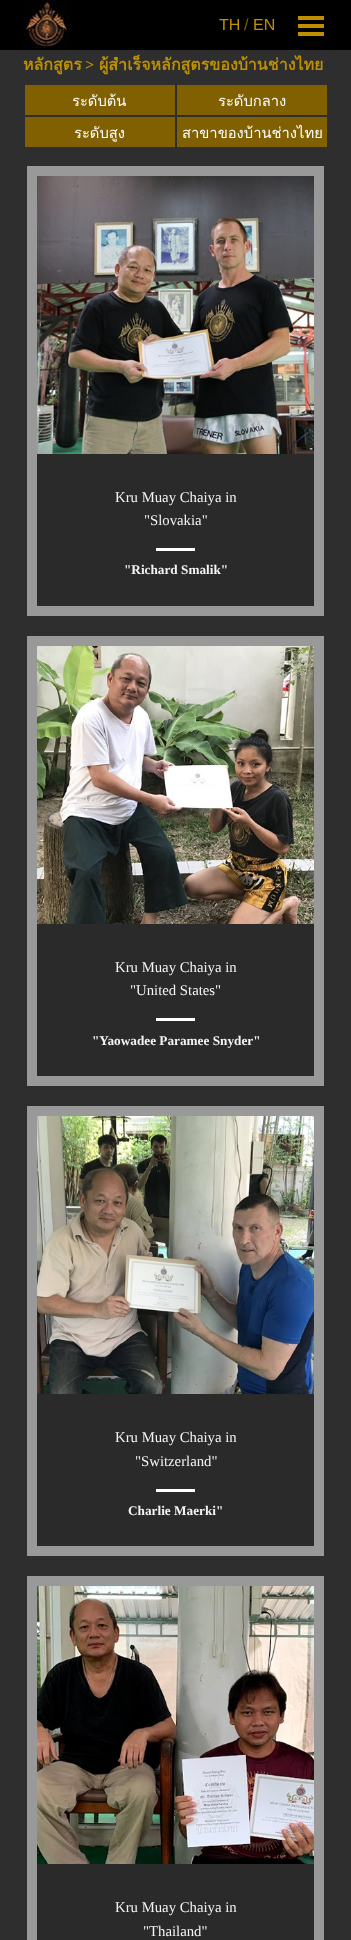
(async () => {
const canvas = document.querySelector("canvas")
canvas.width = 351
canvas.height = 1940
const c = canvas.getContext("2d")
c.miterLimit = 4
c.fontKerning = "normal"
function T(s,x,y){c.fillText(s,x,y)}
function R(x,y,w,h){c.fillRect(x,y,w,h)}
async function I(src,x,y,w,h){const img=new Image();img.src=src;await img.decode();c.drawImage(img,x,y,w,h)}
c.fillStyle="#2e2e2e"
R(0,0,351,1940)
c.fillStyle="#000"
R(0,0,351,50)
await I("1.png",23,0,47,48)
c.font="16px Liberation Sans"
c.fillStyle="#bf9000"
T("TH",219,30)
c.fillStyle="#806000"
T("/",244,30)
c.fillStyle="#bf9000"
T("EN",253,30)
c.fillStyle="#bf8f00"
R(298,16,26,4)
R(298,24,26,4)
R(298,32,26,4)
c.font="bold 16px Loma"
c.fillStyle="#bf9000"
T("หลักสูตร",23,70)
c.font="bold 16px Liberation Serif"
T(">",85,70)
c.font="bold 16px Loma"
T("ผู้สำเร็จหลักสูตรของบ้านช่างไทย",99,70)
c.fillStyle="#806000"
R(25,85,150,30)
c.font="14.75px Loma"
c.fillStyle="#fff"
T("ระดับต้น",72,106)
c.fillStyle="#806000"
R(177,85,150,30)
c.fillStyle="#fff"
T("ระดับกลาง",218,106)
c.fillStyle="#806000"
R(25,117,150,30)
c.fillStyle="#fff"
T("ระดับสูง",74,138)
c.fillStyle="#806000"
R(177,117,150,30)
c.fillStyle="#fff"
T("สาขาของบ้านช่างไทย",182,138)
c.fillStyle="#999"
R(27,166,297,450)
c.fillStyle="#2a2a2a"
R(37,454,277,152)
await I("2.png",37,176,277,278)
c.font="14.75px Liberation Serif"
c.fillStyle="#f3f3f3"
T("Kru Muay Chaiya in",115,502)
T("\"Slovakia\"",144,525)
c.fillStyle="#fff"
R(156,548,39,3)
c.font="bold 13.25px Liberation Serif"
c.fillStyle="#f3f3f3"
T("\"Richard Smalik\"",124,574)
c.fillStyle="#999"
R(27,636,297,450)
c.fillStyle="#2a2a2a"
R(37,924,277,152)
await I("3.png",37,646,277,278)
c.font="14.75px Liberation Serif"
c.fillStyle="#f3f3f3"
T("Kru Muay Chaiya in",115,972)
T("\"United States\"",130,995)
c.fillStyle="#fff"
R(156,1018,39,3)
c.font="bold 13.25px Liberation Serif"
c.fillStyle="#f3f3f3"
T("\"Yaowadee Paramee Snyder\"",92,1045)
c.fillStyle="#999"
R(27,1106,297,450)
c.fillStyle="#2a2a2a"
R(37,1394,277,152)
await I("4.png",37,1116,277,278)
c.font="14.75px Liberation Serif"
c.fillStyle="#f3f3f3"
T("Kru Muay Chaiya in",115,1442)
T("\"Switzerland\"",135,1466)
c.fillStyle="#fff"
R(156,1489,39,3)
c.font="bold 13.25px Liberation Serif"
c.fillStyle="#f3f3f3"
T("Charlie Maerki\"",128,1515)
c.fillStyle="#999"
R(27,1576,297,364)
c.fillStyle="#2a2a2a"
R(37,1864,277,76)
await I("5.png",37,1586,277,278)
c.font="14.75px Liberation Serif"
c.fillStyle="#f3f3f3"
T("Kru Muay Chaiya in",115,1912)
T("\"Thailand\"",143,1936)
})()
